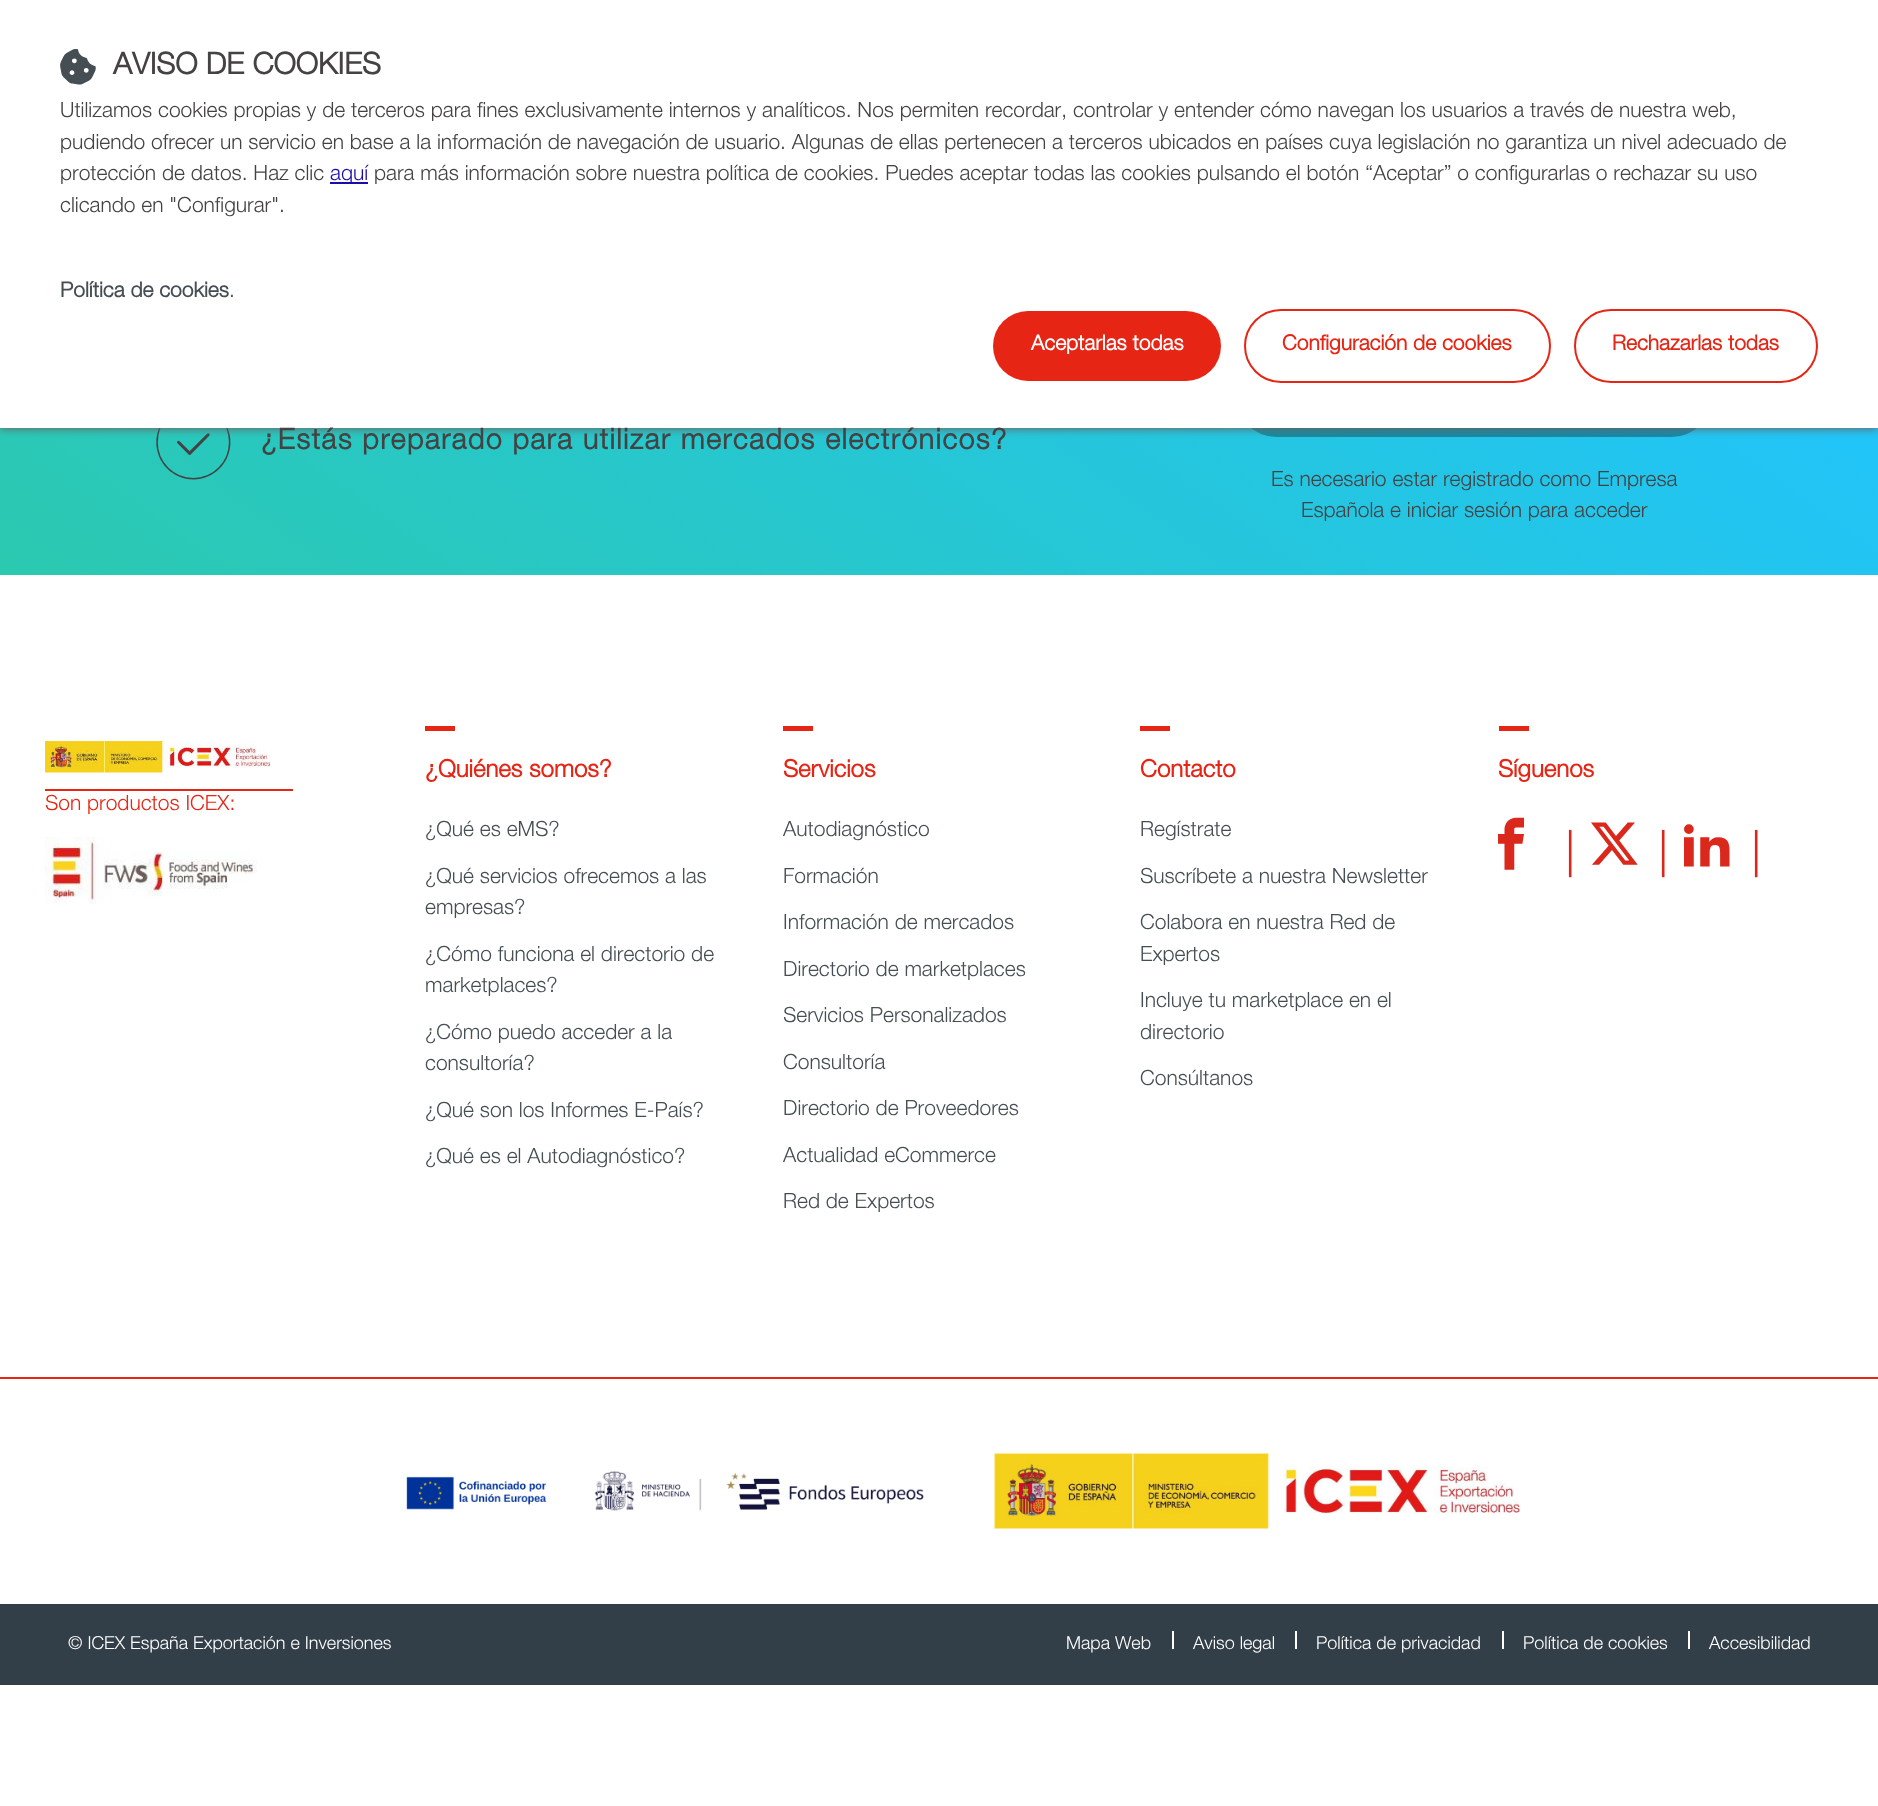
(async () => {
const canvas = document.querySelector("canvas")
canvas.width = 1878
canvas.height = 1806
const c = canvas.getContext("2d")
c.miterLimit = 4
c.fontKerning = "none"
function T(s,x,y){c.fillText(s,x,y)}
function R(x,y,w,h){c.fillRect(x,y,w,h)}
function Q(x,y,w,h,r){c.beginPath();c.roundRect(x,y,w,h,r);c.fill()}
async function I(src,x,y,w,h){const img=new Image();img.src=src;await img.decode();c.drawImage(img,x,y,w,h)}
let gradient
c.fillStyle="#fff"
R(0,0,1878,1806)
gradient = c.createLinearGradient(552,975,1326,-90)
gradient.addColorStop(0,"#2bc9af")
gradient.addColorStop(1,"#20c4fe")
c.fillStyle = gradient
R(0,428,1878,147)
await I("1.png",156,428,75,52)
c.fillStyle="#0000004d"
Q(1236,356,476,81,40.5)
c.fillStyle="#666"
c.filter="blur(4px)"
c.beginPath()
c.rect(0,2,1878,427)
c.fill()
c.filter="none"
c.fillStyle="#fff"
R(0,0,1878,428)
c.font="38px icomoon"
c.fillStyle="#454e53"
T("󎤯",60,83)
c.font="bold 30px Helvetica Neue"
c.fillStyle="#444242"
T("AVISO DE COOKIES",113,74)
c.font="300 21px Helvetica Neue"
T("Utilizamos cookies propias y de terceros para fines exclusivamente internos y analíticos. Nos permiten recordar, controlar y entender cómo navegan los usuarios a través de nuestra web,",60,117)
T("pudiendo ofrecer un servicio en base a la información de navegación de usuario. Algunas de ellas pertenecen a terceros ubicados en países cuya legislación no garantiza un nivel adecuado de",60,149)
T("protección de datos. Haz clic",60,180)
c.fillStyle="#1a0dab"
R(330,182,38,2)
T("aquí",330,180)
c.fillStyle="#444242"
T("para más información sobre nuestra política de cookies. Puedes aceptar todas las cookies pulsando el botón “Aceptar” o configurarlas o rechazar su uso",374,180)
T("clicando en \"Configurar\".",60,212)
c.font="bold 21px Helvetica Neue"
c.fillStyle="#454e53"
T("Política de cookies",60,297)
c.font="300 21px Helvetica Neue"
T(".",229,297)
c.fillStyle="#e62514"
Q(993,311,228,70,35)
c.font="bold 21px Helvetica Neue"
c.fillStyle="#fff"
T("Aceptarlas todas",1031,350)
c.beginPath()
c.roundRect(1245,310,305,72,36)
c.strokeStyle="#e62514"
c.lineWidth=2
c.stroke()
c.fillStyle="#e62514"
T("Configuración de cookies",1282,350)
c.beginPath()
c.roundRect(1575,310,242,72,36)
c.stroke()
T("Rechazarlas todas",1612,350)
c.letterSpacing="1.5px"
c.font="bold 28.5px Helvetica Neue"
c.fillStyle="#444242"
T("¿Estás preparado para utilizar mercados electrónicos?",261,449)
c.letterSpacing="0px"
c.font="300 21px Helvetica Neue"
T("Es necesario estar registrado como Empresa",1271,486)
T("Española e iniciar sesión para acceder",1301,517)
await I("2.png",45,741,225,32)
c.fillStyle="#e62514"
R(45,789,248,2)
T("Son productos ICEX:",45,810)
await I("3.png",45,837,212,67)
R(425,726,30,5)
c.font="bold 24px Helvetica Neue"
T("¿Quiénes somos?",425,777)
c.font="300 21px Helvetica Neue"
c.fillStyle="#454e53"
T("¿Qué es eMS?",425,836)
T("¿Qué servicios ofrecemos a las",425,883)
T("empresas?",425,914)
T("¿Cómo funciona el directorio de",425,961)
T("marketplaces?",425,992)
T("¿Cómo puedo acceder a la",425,1039)
T("consultoría?",425,1070)
T("¿Qué son los Informes E-País?",425,1117)
T("¿Qué es el Autodiagnóstico?",425,1163)
c.fillStyle="#e62514"
R(783,726,30,5)
c.font="bold 24px Helvetica Neue"
T("Servicios",783,777)
c.font="300 21px Helvetica Neue"
c.fillStyle="#454e53"
T("Autodiagnóstico",783,836)
T("Formación",783,883)
T("Información de mercados",783,929)
T("Directorio de marketplaces",783,976)
T("Servicios Personalizados",783,1022)
T("Consultoría",783,1069)
T("Directorio de Proveedores",783,1115)
T("Actualidad eCommerce",783,1162)
T("Red de Expertos",783,1208)
c.fillStyle="#e62514"
R(1140,726,30,5)
c.font="bold 24px Helvetica Neue"
T("Contacto",1140,777)
c.font="300 21px Helvetica Neue"
c.fillStyle="#454e53"
T("Regístrate",1140,836)
T("Suscríbete a nuestra Newsletter",1140,883)
T("Colabora en nuestra Red de",1140,929)
T("Expertos",1140,961)
T("Incluye tu marketplace en el",1140,1007)
T("directorio",1140,1039)
T("Consúltanos",1140,1085)
c.fillStyle="#e62514"
R(1499,726,30,5)
c.font="bold 24px Helvetica Neue"
T("Síguenos",1498,777)
c.font="52px icomoon"
c.fillStyle="#da291c"
T("󎤑",1498,866)
c.font="52px Liberation Serif"
T("|",1565,866)
c.font="52px icomoon"
T("󎤟",1591,866)
c.font="52px Liberation Serif"
T("|",1658,866)
c.font="52px icomoon"
T("󎤔",1684,866)
c.font="52px Liberation Serif"
T("|",1751,866)
c.fillStyle="#e62514"
R(0,1377,1878,2)
await I("4.png",406,1471,518,40)
await I("5.png",994,1453,526,76)
c.fillStyle="#333f48"
R(0,1604,1878,81)
c.font="300 18px Helvetica Neue"
c.fillStyle="#fff"
T("© ICEX España Exportación e Inversiones",68,1649)
T("Mapa Web",1066,1649)
R(1172,1631,2,18)
T("Aviso legal",1193,1649)
R(1295,1631,2,18)
T("Política de privacidad",1316,1649)
R(1502,1631,2,18)
T("Política de cookies",1523,1649)
R(1688,1631,2,18)
T("Accesibilidad",1709,1649)
})()
